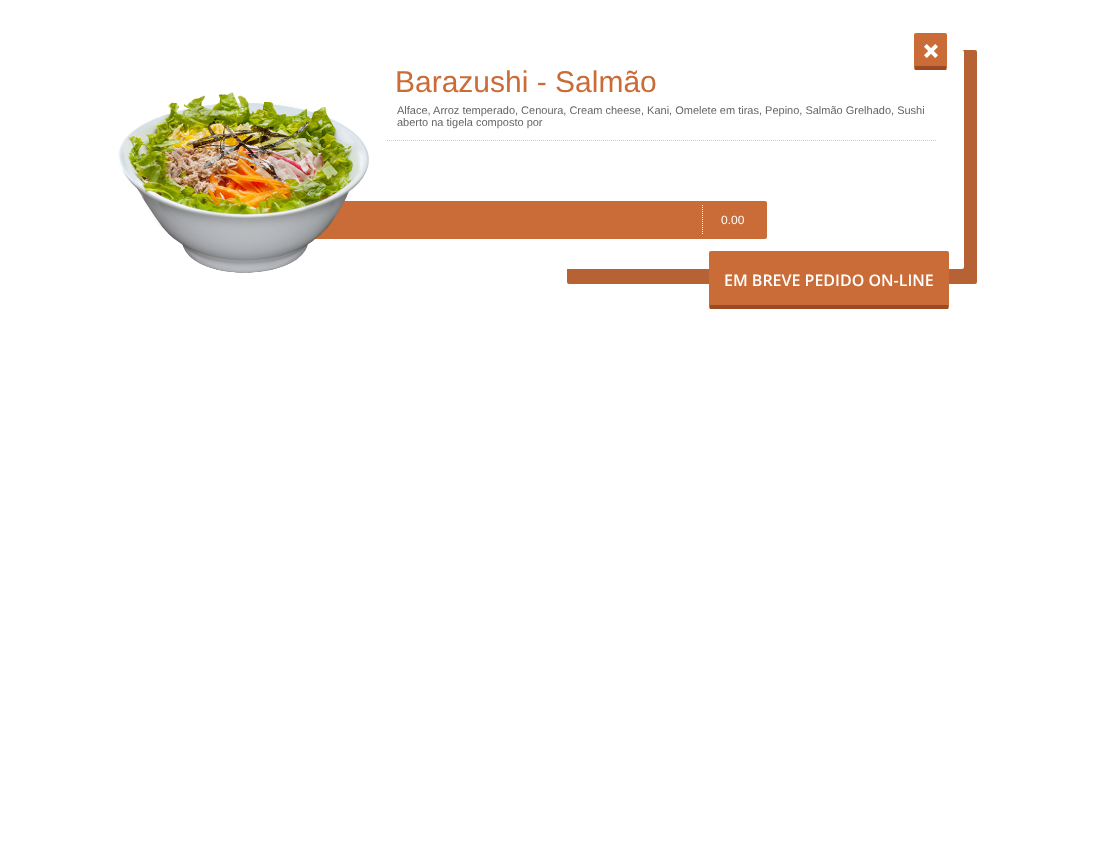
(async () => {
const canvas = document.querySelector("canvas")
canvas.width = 1094
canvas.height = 853
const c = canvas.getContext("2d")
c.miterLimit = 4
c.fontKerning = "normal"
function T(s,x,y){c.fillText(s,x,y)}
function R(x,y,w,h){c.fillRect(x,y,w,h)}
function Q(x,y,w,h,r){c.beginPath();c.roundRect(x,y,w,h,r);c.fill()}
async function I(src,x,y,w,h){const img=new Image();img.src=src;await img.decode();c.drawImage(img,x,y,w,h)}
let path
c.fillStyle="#fff"
R(0,0,1094,853)
c.fillStyle="#b66234"
Q(567,50,410,234,2)
c.fillStyle="#fff"
c.beginPath()
c.roundRect(237,50,727,219,[109.5,2,2,109.5])
c.fill()
c.fillStyle="#ca6c38"
Q(914,33,33,37,2)
await I("1.png",924,44,14,14)
c.fillStyle="#9d4923"
R(915,66,31,4)
c.font="30px Liberation Sans"
c.fillStyle="#ca6c38"
T("Barazushi - Salmão",395,92)
Q(237,201,530,38,2)
await I("2.png",118,92,251,181)
c.font="11px Liberation Sans"
c.fillStyle="#666"
T("Alface, Arroz temperado, Cenoura, Cream cheese, Kani, Omelete em tiras, Pepino, Salmão Grelhado, Sushi",397,114)
T("aberto na tigela composto por",397,126)
path = new Path2D("M387 140.5h550")
c.strokeStyle="#ccc"
c.setLineDash([1,1])
c.stroke(path)
path = new Path2D("M702.5 205v30")
c.strokeStyle="#fff"
c.stroke(path)
c.font="12px Liberation Sans"
c.fillStyle="#fff"
T("0.00",721,224)
c.fillStyle="#ca6c38"
Q(709,251,240,58,2)
c.fillStyle="#9d4923"
R(710,305,238,4)
c.font="600 16px Open Sans"
c.fillStyle="#fff"
T("EM BREVE PEDIDO ON-LINE",724,286)
})()
